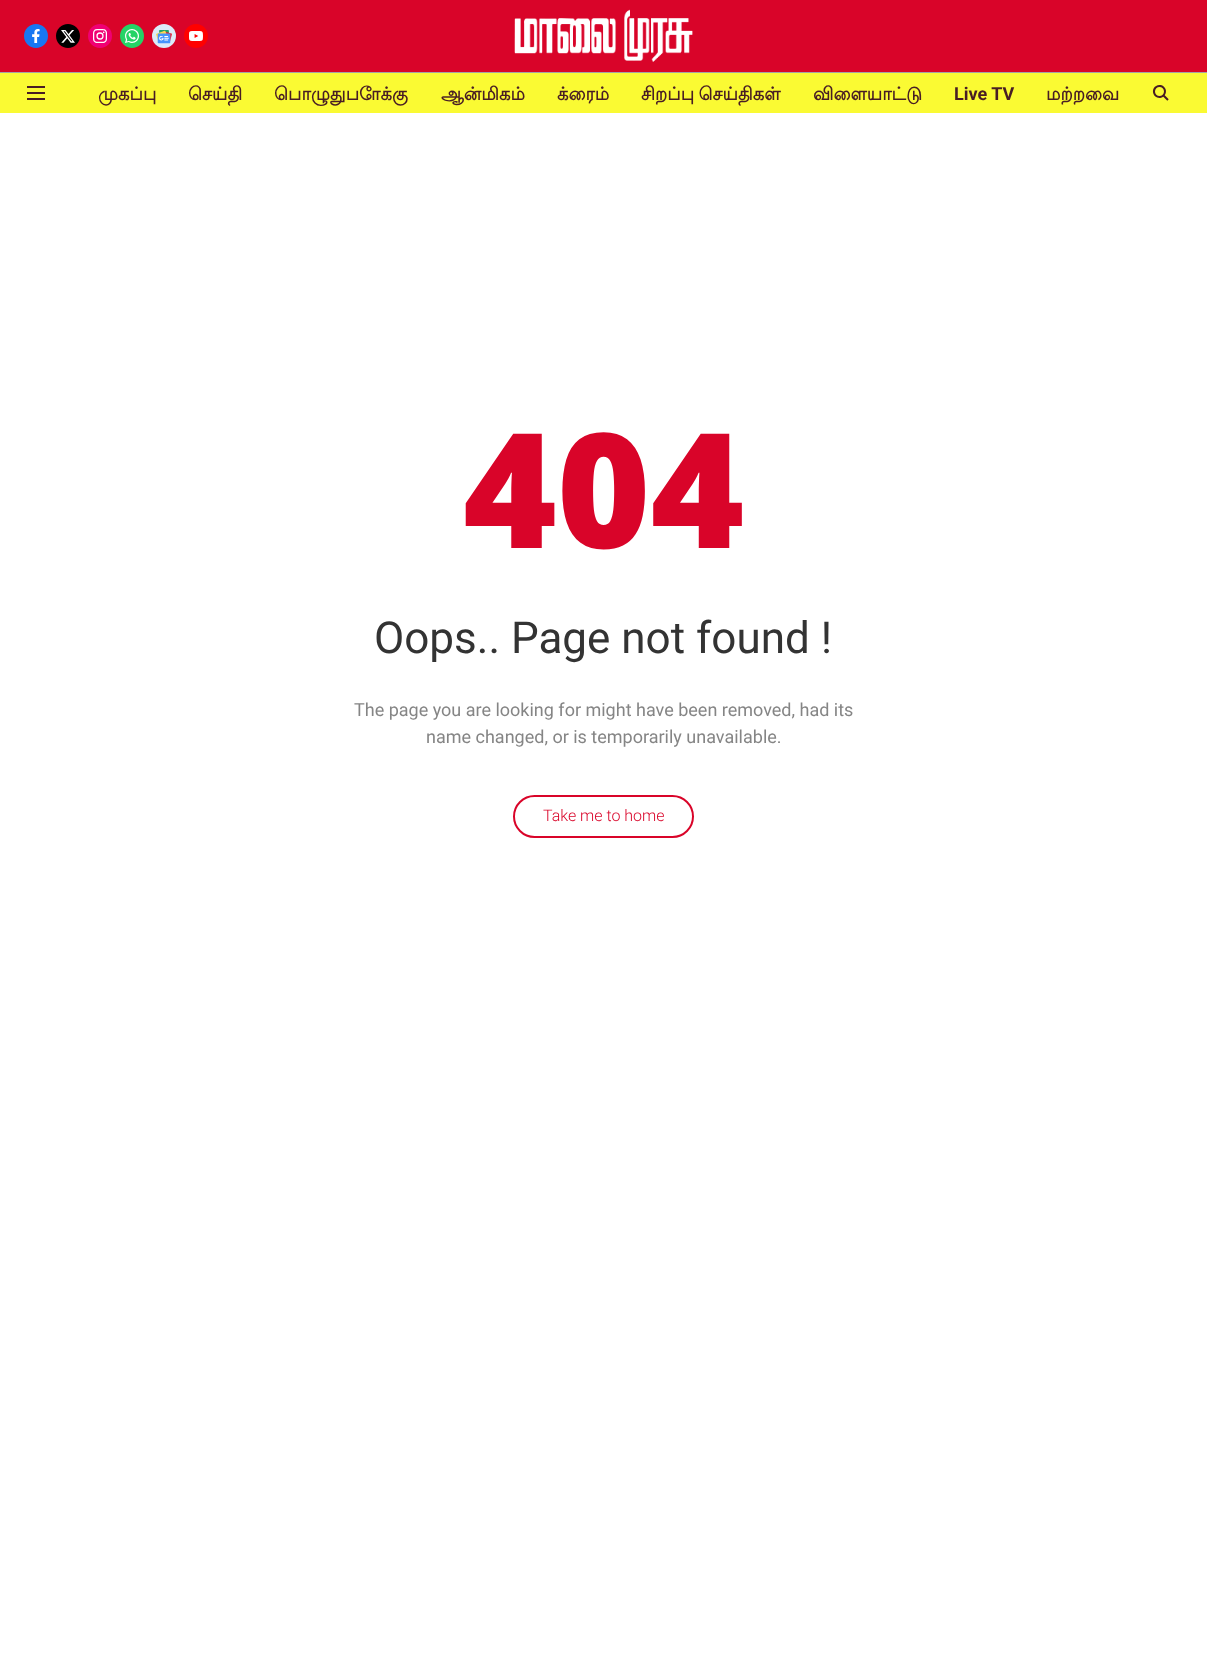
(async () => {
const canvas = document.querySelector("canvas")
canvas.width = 1207
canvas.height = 1670
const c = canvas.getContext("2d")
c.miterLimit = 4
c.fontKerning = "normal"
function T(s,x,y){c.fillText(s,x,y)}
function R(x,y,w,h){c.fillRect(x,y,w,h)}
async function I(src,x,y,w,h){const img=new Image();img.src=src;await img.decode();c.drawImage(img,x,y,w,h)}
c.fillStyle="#fff"
R(0,0,1207,1670)
c.fillStyle="#d90429"
R(0,0,1207,72)
c.fillStyle="#a4a4a4"
R(0,72,1207,1)
await I("1.png",24,24,24,24)
await I("2.png",56,24,24,24)
await I("3.png",88,24,24,24)
await I("4.png",120,24,24,24)
await I("5.png",152,24,24,24)
await I("6.png",184,24,24,24)
await I("7.png",514,9,179,53)
c.fillStyle="#fafa33"
R(0,73,1207,40)
await I("8.png",27,86,18,14)
c.font="bold 18px Lohit Tamil"
c.fillStyle="#481d24"
T("முகப்பு",98,100)
T("செய்தி",188,100)
T("பொழுதுபோக்கு",274,100)
T("ஆன்மிகம்",441,100)
T("க்ரைம்",557,100)
c.wordSpacing="-1px"
T("சிறப்பு செய்திகள்",641,100)
c.wordSpacing="0px"
T("விளையாட்டு",813,100)
c.font="bold 18px Roboto"
T("Live TV",954,100)
c.font="bold 18px Lohit Tamil"
T("மற்றவை",1046,100)
await I("9.png",1152,85,17,16)
c.font="800 160px Open Sans"
c.fillStyle="#d90429"
T("404",463,548)
c.font="44px Roboto"
c.fillStyle="#333"
T("Oops.. Page not found !",374,653)
c.font="18px Roboto"
c.fillStyle="#858585"
T("The page you are looking for might have been removed, had its",354,716)
T("name changed, or is temporarily unavailable.",426,743)
c.beginPath()
c.roundRect(514,796,179,41,20.5)
c.strokeStyle="#d90429"
c.lineWidth=2
c.stroke()
c.font="300 16px Roboto"
c.fillStyle="#d90429"
T("Take me to home",543,821)
})()
